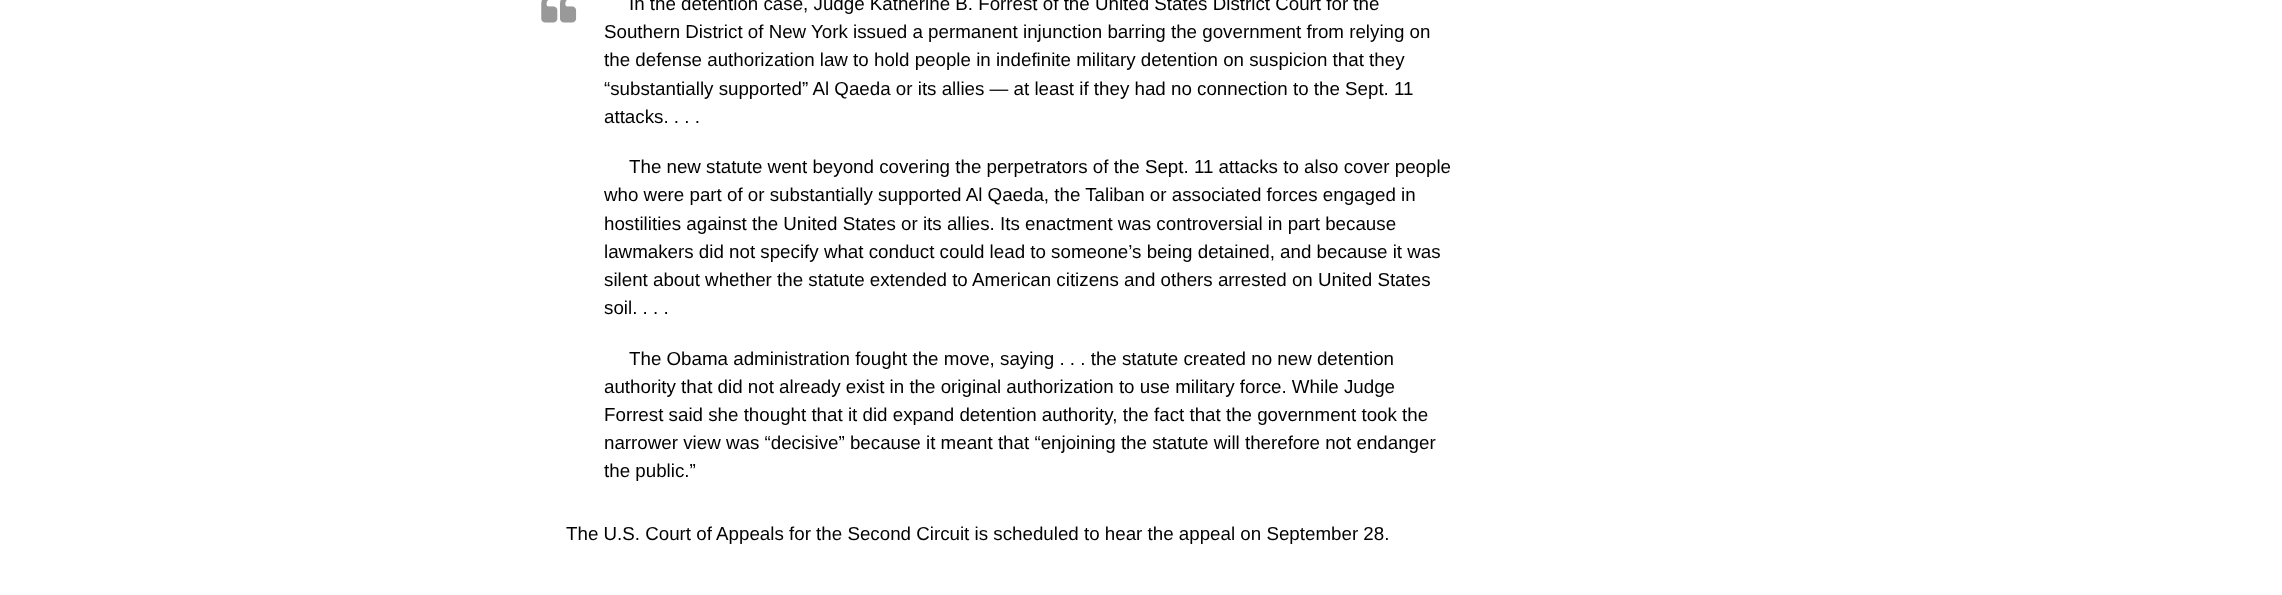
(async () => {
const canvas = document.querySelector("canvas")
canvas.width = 2282
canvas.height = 595
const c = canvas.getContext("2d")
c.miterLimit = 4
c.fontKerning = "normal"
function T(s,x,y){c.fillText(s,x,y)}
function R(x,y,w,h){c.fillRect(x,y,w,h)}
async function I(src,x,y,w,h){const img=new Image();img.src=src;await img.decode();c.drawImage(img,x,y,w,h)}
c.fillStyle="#fff"
R(0,0,2282,595)
await I("1.png",541,0,36,23)
c.font="18.75px Liberation Sans"
c.fillStyle="#000"
T("In the detention case, Judge Katherine B. Forrest of the United States District Court for the",629,10)
T("Southern District of New York issued a permanent injunction barring the government from relying on",604,38)
T("the defense authorization law to hold people in indefinite military detention on suspicion that they",604,66)
T("“substantially supported” Al Qaeda or its allies — at least if they had no connection to the Sept. 11",604,95)
T("attacks. . . .",604,123)
T("The new statute went beyond covering the perpetrators of the Sept. 11 attacks to also cover people",629,173)
T("who were part of or substantially supported Al Qaeda, the Taliban or associated forces engaged in",604,201)
T("hostilities against the United States or its allies. Its enactment was controversial in part because",604,230)
T("lawmakers did not specify what conduct could lead to someone’s being detained, and because it was",604,258)
T("silent about whether the statute extended to American citizens and others arrested on United States",604,286)
T("soil. . . .",604,314)
T("The Obama administration fought the move, saying . . . the statute created no new detention",629,365)
T("authority that did not already exist in the original authorization to use military force. While Judge",604,393)
T("Forrest said she thought that it did expand detention authority, the fact that the government took the",604,421)
T("narrower view was “decisive” because it meant that “enjoining the statute will therefore not endanger",604,449)
T("the public.”",604,477)
T("The U.S. Court of Appeals for the Second Circuit is scheduled to hear the appeal on September 28.",566,540)
})()
